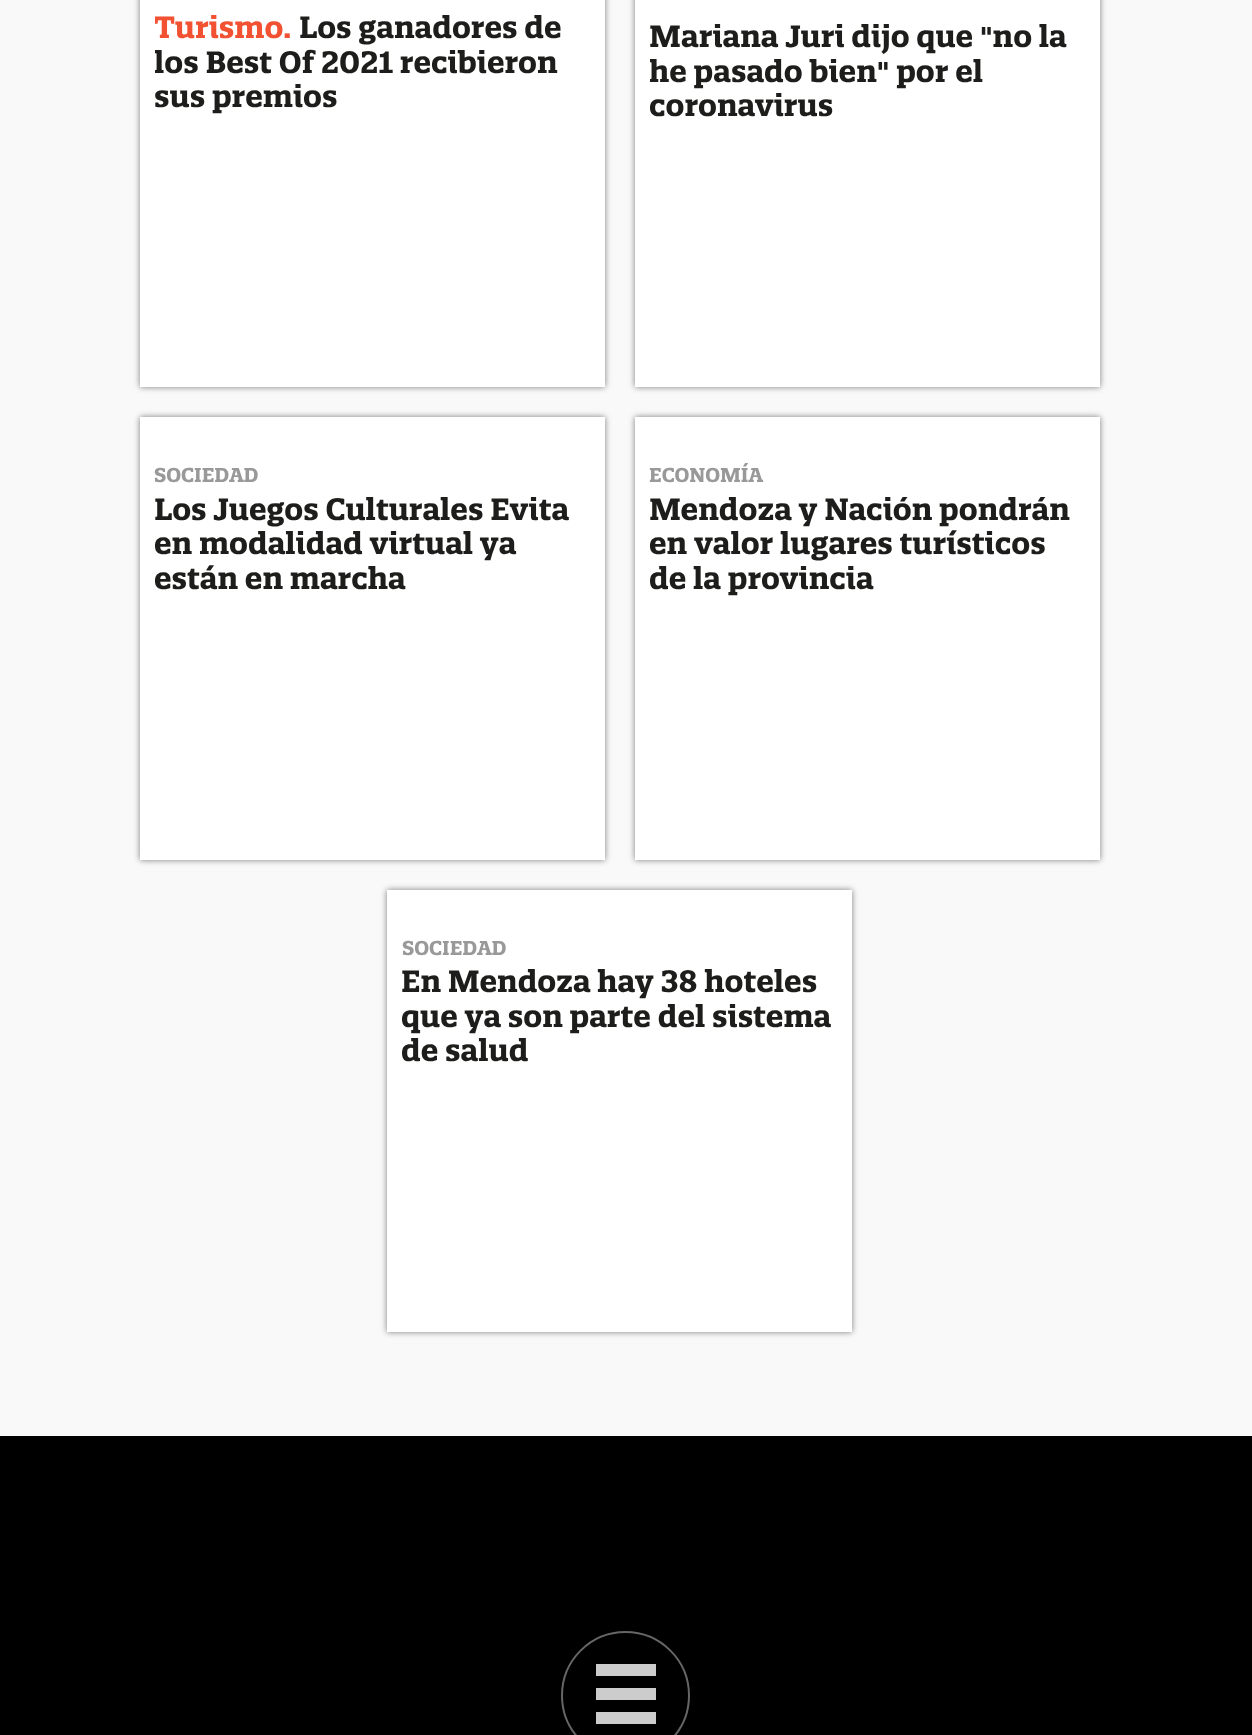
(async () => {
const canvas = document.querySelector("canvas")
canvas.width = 1252
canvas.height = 1735
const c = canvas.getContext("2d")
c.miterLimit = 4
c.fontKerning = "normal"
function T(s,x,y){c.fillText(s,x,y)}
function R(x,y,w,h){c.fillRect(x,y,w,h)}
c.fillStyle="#f9f9f9"
R(0,0,1252,1735)
c.fillStyle="#00000080"
c.filter="blur(3px)"
c.beginPath()
c.rect(140,-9,465,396)
c.fill()
c.filter="none"
c.fillStyle="#fff"
R(140,0,465,387)
c.save()
c.beginPath()
c.rect(155,15,435,104)
c.clip()
c.font="bold 30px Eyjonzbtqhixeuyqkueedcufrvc"
c.fillStyle="#f25132"
T("Turismo",154,38)
c.restore()
c.font="bold 30px Eyjonzbtqhixeuyqkueedcufrvc"
c.fillStyle="#f25132"
T(".",283,38)
c.fillStyle="#1d1d1b"
T("Los ganadores de",299,38)
c.save()
c.beginPath()
c.rect(155,15,435,104)
c.clip()
T("los Best Of 2021 recibieron",154,73)
c.restore()
T("sus premios",154,107)
c.fillStyle="#00000080"
c.filter="blur(3px)"
c.beginPath()
c.rect(635,-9,465,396)
c.fill()
c.filter="none"
c.fillStyle="#fff"
R(635,0,465,387)
c.fillStyle="#1d1d1b"
T("Mariana Juri dijo que \"no la",649,47)
c.save()
c.beginPath()
c.rect(650,24,435,104)
c.clip()
T("he pasado bien\" por el",649,82)
T("coronavirus",649,116)
c.restore()
c.fillStyle="#00000080"
c.filter="blur(3px)"
c.beginPath()
c.rect(140,417,465,443)
c.fill()
c.filter="none"
c.fillStyle="#fff"
R(140,417,465,443)
c.font="bold 19.5px Eyjonzbtqhixeuyqkueedcufrvc"
c.fillStyle="#999"
T("SOCIEDAD",154,482)
c.font="bold 30px Eyjonzbtqhixeuyqkueedcufrvc"
c.fillStyle="#1d1d1b"
T("Los Juegos Culturales Evita",154,520)
c.save()
c.beginPath()
c.rect(155,497,435,103)
c.clip()
T("en modalidad virtual ya",154,554)
T("están en marcha",154,589)
c.restore()
c.fillStyle="#00000080"
c.filter="blur(3px)"
c.beginPath()
c.rect(635,417,465,443)
c.fill()
c.filter="none"
c.fillStyle="#fff"
R(635,417,465,443)
c.font="bold 19.5px Eyjonzbtqhixeuyqkueedcufrvc"
c.fillStyle="#999"
T("ECONOMÍA",649,482)
c.save()
c.beginPath()
c.rect(650,497,435,103)
c.clip()
c.font="bold 30px Eyjonzbtqhixeuyqkueedcufrvc"
c.fillStyle="#1d1d1b"
T("Mendoza y Nación pondrán",649,520)
T("en valor lugares turísticos",649,554)
T("de la provincia",649,589)
c.restore()
c.fillStyle="#00000080"
c.filter="blur(3px)"
c.beginPath()
c.rect(387,890,465,442)
c.fill()
c.filter="none"
c.fillStyle="#fff"
R(387,890,465,442)
c.fillStyle="#999"
T("SOCIEDAD",402,955)
c.font="bold 30px Eyjonzbtqhixeuyqkueedcufrvc"
c.fillStyle="#1d1d1b"
T("En Mendoza hay 38 hoteles",401,992)
T("que ya son parte del sistema",401,1027)
T("de salud",401,1061)
c.fillStyle="#000"
R(0,1436,1252,299)
c.beginPath()
c.arc(625.5,1695.5,63.5,0,7)
c.strokeStyle="#666"
c.lineWidth=2
c.stroke()
c.fillStyle="#ccc"
R(596,1664,60,12)
R(596,1688,60,12)
R(596,1712,60,12)
})()
